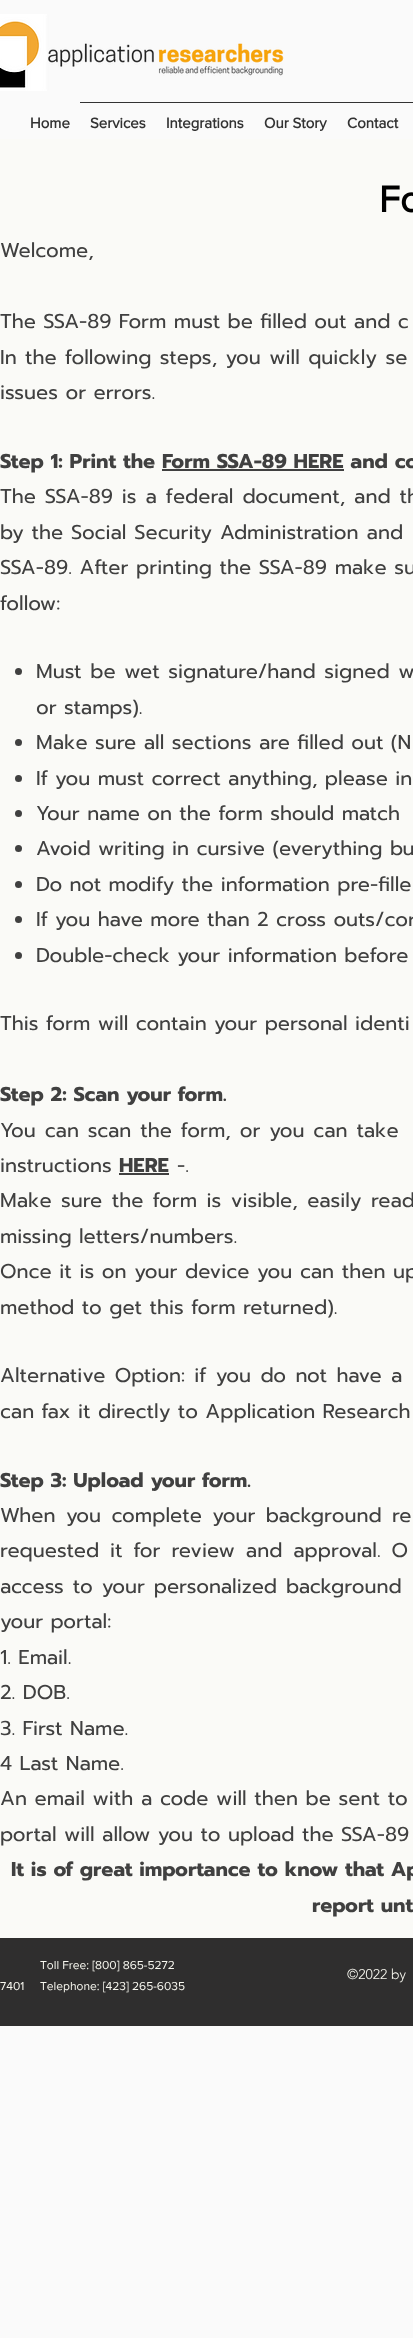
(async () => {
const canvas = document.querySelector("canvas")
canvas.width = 413
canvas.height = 2338
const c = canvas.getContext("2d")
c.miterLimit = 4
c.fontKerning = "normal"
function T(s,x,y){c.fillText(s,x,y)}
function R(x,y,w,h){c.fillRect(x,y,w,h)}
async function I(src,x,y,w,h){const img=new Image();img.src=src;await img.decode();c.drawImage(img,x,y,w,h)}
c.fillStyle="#fafafa"
R(0,0,413,2338)
await I("1.png",0,14,284,77)
c.fillStyle="#323232"
R(80,102,333,1)
c.font="bold 15px 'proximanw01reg'"
T("Home",30,128)
T("Services",90,128)
T("Integrations",166,128)
T("Our Story",264,128)
T("Contact",347,128)
c.fillStyle="#fafaf7"
R(0,139,413,1799)
c.font="bold 38px 'proximanw01reg'"
c.fillStyle="#000"
T("Fo",379,212)
c.font="20px Prompt"
c.fillStyle="#404040"
T("Welcome,",0,257)
T("The SSA-89 Form must be filled out and c",0,328)
c.wordSpacing="1px"
T("In the following steps, you will quickly se",0,364)
c.wordSpacing="0px"
T("issues or errors.",0,399)
c.font="bold 20px Prompt"
T("Step 1: Print the Form SSA-89 HERE and co",0,468)
R(162,469,182,2)
c.wordSpacing="1.5px"
c.font="20px Prompt"
T("The SSA-89 is a federal document, and th",0,503)
c.wordSpacing="0.5px"
T("by the Social Security Administration and",0,539)
c.wordSpacing="0.25px"
T("SSA-89. After printing the SSA-89 make su",0,574)
c.wordSpacing="0px"
T("follow:",0,610)
c.beginPath()
c.arc(18.5,671.5,3.5,0,7)
c.fill()
c.wordSpacing="1.25px"
T("Must be wet signature/hand signed w",36,678)
c.wordSpacing="0px"
T("or stamps).",36,714)
c.beginPath()
c.arc(18.5,742.5,3.5,0,7)
c.fill()
T("Make sure all sections are filled out (N",36,749)
c.beginPath()
c.arc(18.5,778.5,3.5,0,7)
c.fill()
T("If you must correct anything, please in",36,785)
c.beginPath()
c.arc(18.5,813.5,3.5,0,7)
c.fill()
T("Your name on the form should match",36,820)
c.beginPath()
c.arc(18.5,848.5,3.5,0,7)
c.fill()
T("Avoid writing in cursive (everything bu",36,855)
c.beginPath()
c.arc(18.5,884.5,3.5,0,7)
c.fill()
T("Do not modify the information pre-fille",36,891)
c.beginPath()
c.arc(18.5,919.5,3.5,0,7)
c.fill()
T("If you have more than 2 cross outs/cor",36,926)
c.beginPath()
c.arc(18.5,955.5,3.5,0,7)
c.fill()
T("Double-check your information before",36,962)
T("This form will contain your personal identi",0,1030)
c.font="bold 20px Prompt"
T("Step 2: Scan your form.",0,1101)
c.wordSpacing="1.5px"
c.font="20px Prompt"
T("You can scan the form, or you can take",0,1137)
c.wordSpacing="0px"
T("instructions",0,1172)
c.font="bold 20px Prompt"
T("HERE",119,1172)
R(119,1173,50,2)
c.font="20px Prompt"
T("-.",177,1172)
c.wordSpacing="2px"
T("Make sure the form is visible, easily read",0,1207)
c.wordSpacing="0px"
T("missing letters/numbers.",0,1243)
c.wordSpacing="0.25px"
T("Once it is on your device you can then up",0,1278)
c.wordSpacing="0px"
T("method to get this form returned).",0,1314)
c.wordSpacing="2px"
T("Alternative Option: if you do not have a",0,1382)
c.wordSpacing="0px"
T("can fax it directly to Application Research",0,1418)
c.font="bold 20px Prompt"
T("Step 3: Upload your form.",0,1487)
c.wordSpacing="3px"
c.font="20px Prompt"
T("When you complete your background re",0,1522)
c.wordSpacing="3.5px"
T("requested it for review and approval. O",0,1557)
c.wordSpacing="1.5px"
T("access to your personalized background",0,1593)
c.wordSpacing="0px"
T("your portal:",0,1628)
T("1. Email.",0,1664)
T("2. DOB.",0,1699)
T("3. First Name.",0,1735)
T("4 Last Name.",0,1770)
c.wordSpacing="0.25px"
T("An email with a code will then be sent to",0,1805)
c.wordSpacing="0px"
T("portal will allow you to upload the SSA-89",0,1841)
c.font="bold 20px Prompt"
T("It is of great importance to know that Ap",11,1876)
T("report unt",312,1912)
c.fillStyle="#2f2e2e"
R(0,1938,413,88)
c.font="12px 'proximanw01reg'"
c.fillStyle="#f9f9f1"
T("Toll Free: [800] 865-5272",40,1969)
T("Telephone: [423] 265-6035",40,1990)
c.font="300 14px 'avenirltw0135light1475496'"
T("©2022 by",347,1979)
c.font="12px 'proximanw01reg'"
T("7401",0,1990)
})()
